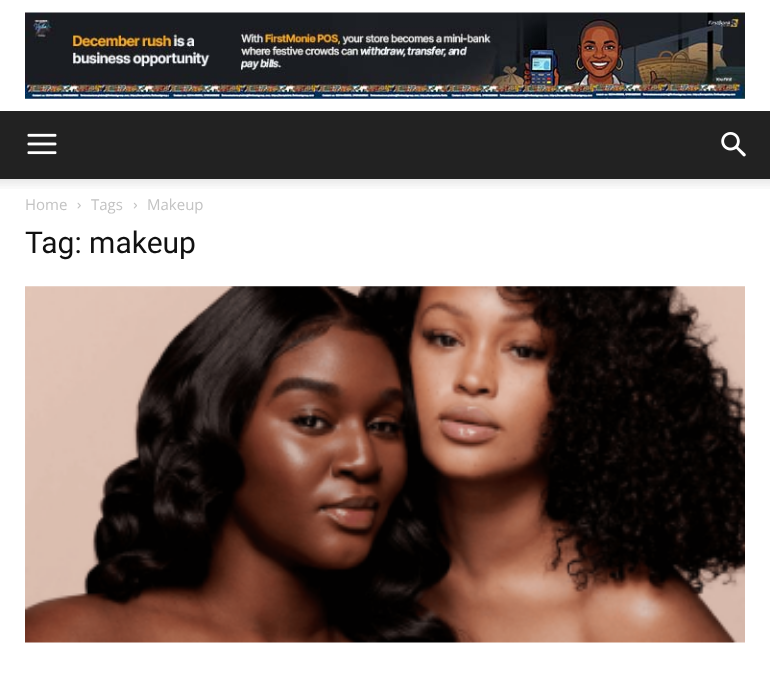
(async () => {
const canvas = document.querySelector("canvas")
canvas.width = 770
canvas.height = 676
const c = canvas.getContext("2d")
c.miterLimit = 4
c.fontKerning = "normal"
function T(s,x,y){c.fillText(s,x,y)}
function R(x,y,w,h){c.fillRect(x,y,w,h)}
async function I(src,x,y,w,h){const img=new Image();img.src=src;await img.decode();c.drawImage(img,x,y,w,h)}
c.fillStyle="#fff"
R(0,0,770,676)
await I("1.png",25,12,720,87)
c.fillStyle="#222"
R(0,111,770,68)
await I("2.png",27,133,30,22)
await I("3.png",721,132,25,25)
await I("4.png",0,179,770,10)
c.font="15px Open Sans"
c.fillStyle="#c3c3c3"
T("Home",25,210)
await I("5.png",77,202,4,7)
T("Tags",91,210)
await I("6.png",133,202,4,7)
T("Makeup",147,210)
c.font="30px Roboto"
c.fillStyle="#111"
T("Tag: makeup",25,253)
await I("7.png",25,286,720,357)
})()
